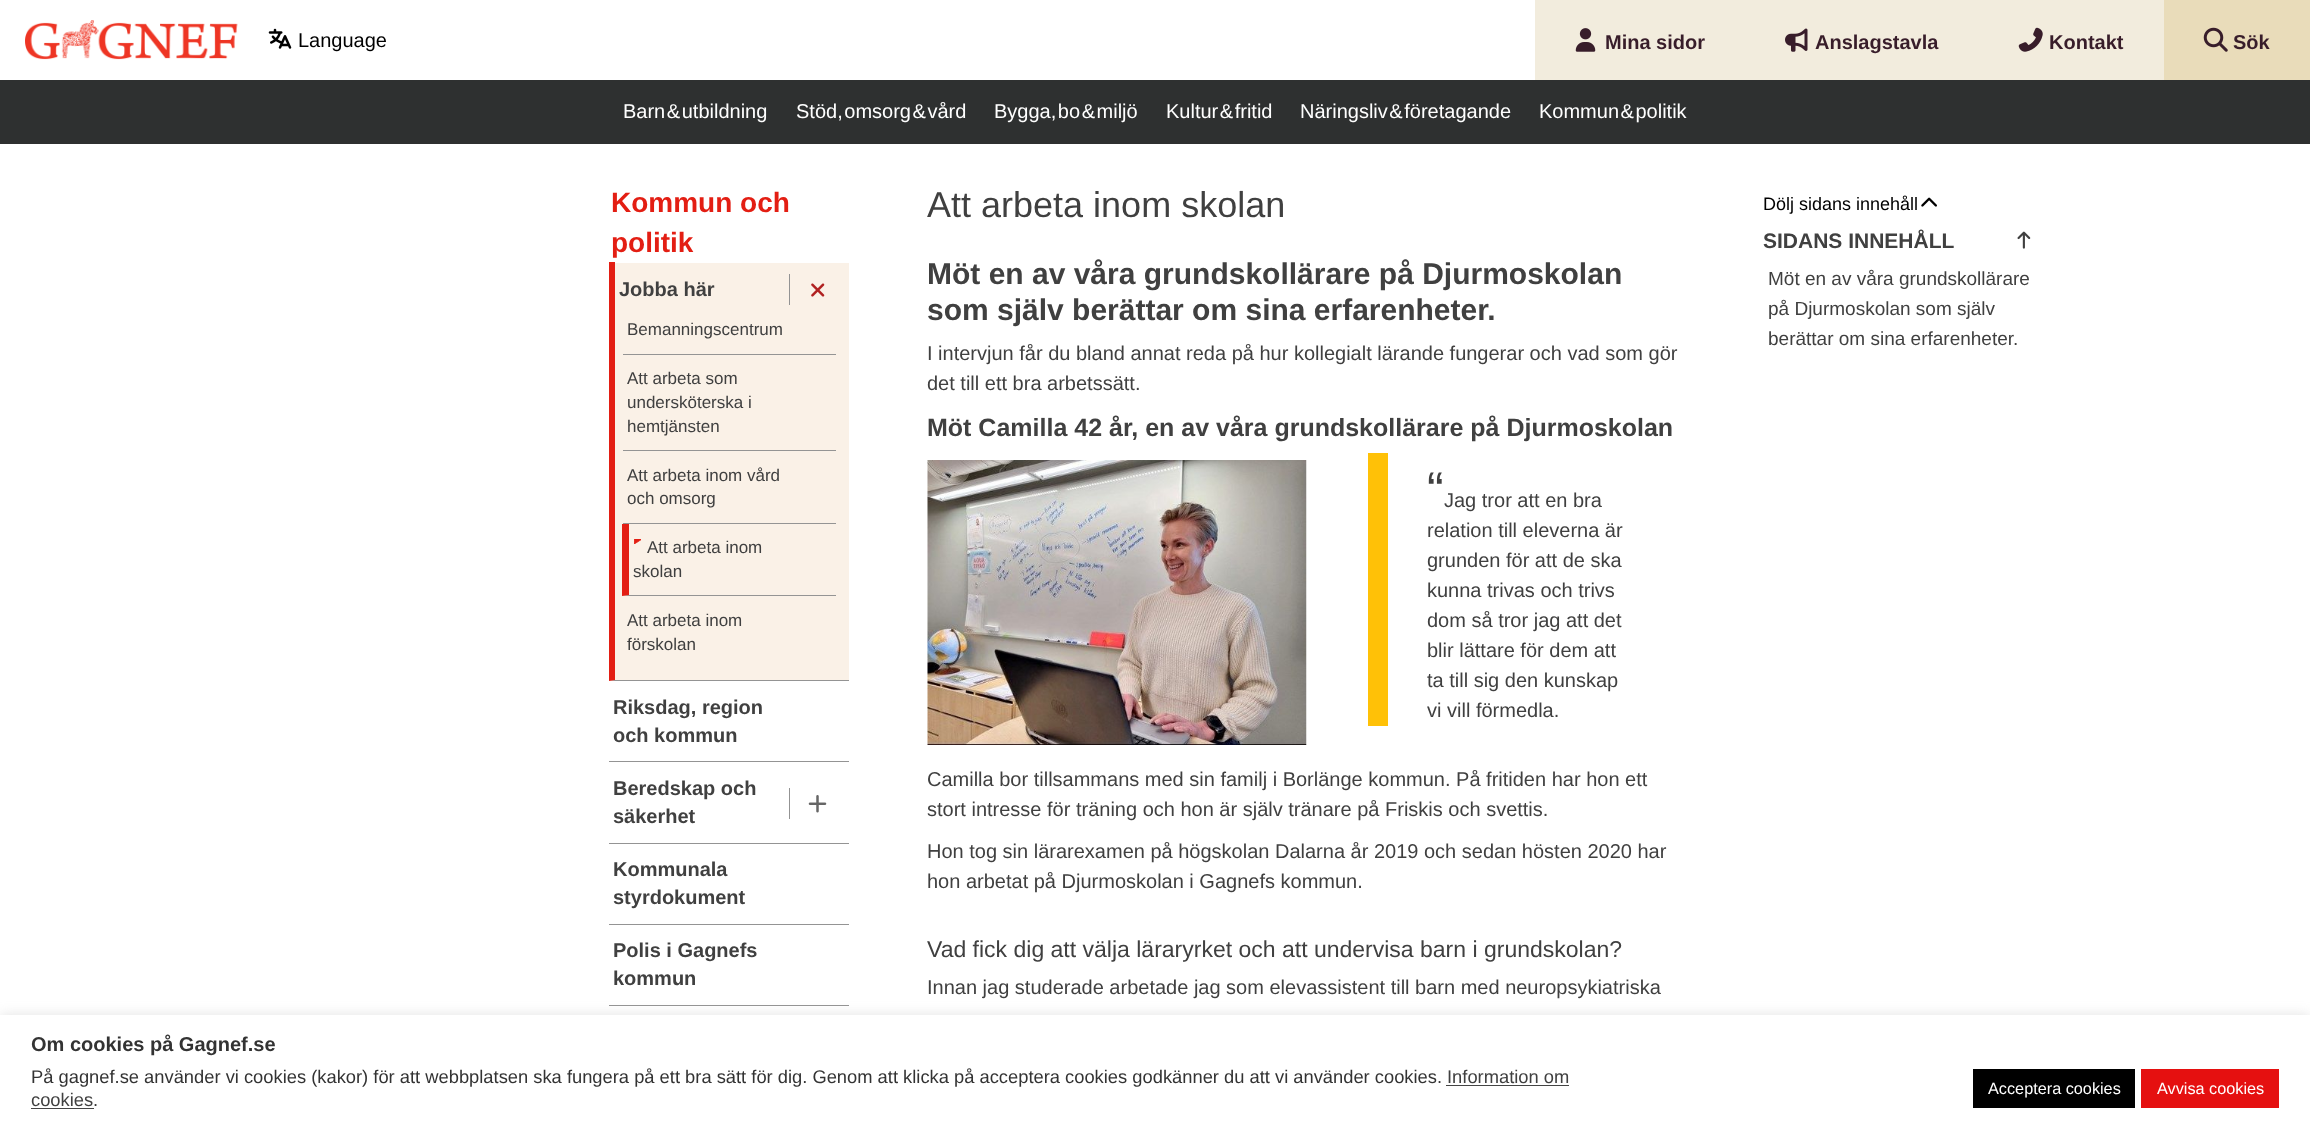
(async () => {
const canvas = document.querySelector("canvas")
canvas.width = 2310
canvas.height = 1131
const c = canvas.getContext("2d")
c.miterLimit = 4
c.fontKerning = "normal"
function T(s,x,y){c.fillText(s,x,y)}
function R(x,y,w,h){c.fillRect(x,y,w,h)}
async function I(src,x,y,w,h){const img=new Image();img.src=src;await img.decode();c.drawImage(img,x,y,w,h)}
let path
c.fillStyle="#fff"
R(0,0,2310,1131)
await I("1.png",25,20,213,40)
await I("2.png",268,28,24,21)
c.font="20px Liberation Sans"
c.fillStyle="#000"
T("Language",298,47)
c.fillStyle="#f2ecdd"
R(1535,0,629,80)
await I("3.png",1575,28,21,24)
c.font="bold 20px Liberation Sans"
c.fillStyle="#381d2a"
T("Mina sidor",1605,49)
await I("4.png",1785,28,23,24)
T("Anslagstavla",1815,49)
await I("5.png",2018,27,25,25)
T("Kontakt",2049,49)
c.fillStyle="#e9dcba"
R(2164,0,146,80)
await I("6.png",2203,27,25,25)
c.fillStyle="#381d2a"
T("Sök",2233,49)
c.fillStyle="#2e3030"
R(0,80,2310,64)
c.wordSpacing="-4px"
c.font="20px Liberation Sans"
c.fillStyle="#fff"
T("Barn & utbildning",623,118)
T("Stöd, omsorg & vård",796,118)
T("Bygga, bo & miljö",994,118)
T("Kultur & fritid",1166,118)
T("Näringsliv & företagande",1300,118)
T("Kommun & politik",1539,118)
c.wordSpacing="0px"
c.font="bold 28px Liberation Sans"
c.fillStyle="#e31e13"
T("Kommun och",611,212)
T("politik",611,252)
c.fillStyle="#faf1e7"
R(609,263,240,418)
c.fillStyle="#949494"
path = new Path2D("M849 681h-240l6-1h234z")
c.fill(path)
c.fillStyle="#e31e13"
path = new Path2D("M609 681v-419h6v418z")
c.fill(path)
c.font="bold 20px Liberation Sans"
c.fillStyle="#404040"
T("Jobba här",619,296)
c.fillStyle="#939393"
R(789,274,1,31)
await I("7.png",811,283,14,14)
c.fillStyle="#949494"
R(623,354,213,1)
c.font="17px Liberation Sans"
c.fillStyle="#404040"
T("Bemanningscentrum",627,335)
c.fillStyle="#949494"
R(623,450,213,1)
c.fillStyle="#404040"
T("Att arbeta som",627,384)
T("undersköterska i",627,408)
T("hemtjänsten",627,432)
c.fillStyle="#949494"
R(623,523,213,1)
c.fillStyle="#404040"
T("Att arbeta inom vård",627,481)
T("och omsorg",627,504)
c.fillStyle="#949494"
path = new Path2D("M836 596h-214l7-1h207z")
c.fill(path)
c.fillStyle="#e31e13"
path = new Path2D("M622 596v-72h7v71z")
c.fill(path)
await I("8.png",634,539,7,5)
c.fillStyle="#404040"
T("Att arbeta inom",647,553)
T("skolan",633,577)
T("Att arbeta inom",627,626)
T("förskolan",627,650)
c.fillStyle="#949494"
R(609,761,240,1)
c.font="bold 20px Liberation Sans"
c.fillStyle="#404040"
T("Riksdag, region",613,714)
T("och kommun",613,742)
c.fillStyle="#949494"
R(609,843,240,1)
c.fillStyle="#404040"
T("Beredskap och",613,795)
T("säkerhet",613,823)
c.fillStyle="#939393"
R(789,788,1,31)
await I("9.png",808,795,19,18)
c.fillStyle="#949494"
R(609,924,240,1)
c.fillStyle="#404040"
T("Kommunala",613,876)
T("styrdokument",613,904)
c.fillStyle="#949494"
R(609,1005,240,1)
c.fillStyle="#404040"
T("Polis i Gagnefs",613,957)
T("kommun",613,985)
c.font="36px Liberation Sans"
T("Att arbeta inom skolan",927,217)
c.font="bold 30px Liberation Sans"
T("Möt en av våra grundskollärare på Djurmoskolan",927,284)
T("som själv berättar om sina erfarenheter.",927,320)
c.font="20px Liberation Sans"
T("I intervjun får du bland annat reda på hur kollegialt lärande fungerar och vad som gör",927,360)
T("det till ett bra arbetssätt.",927,390)
c.font="bold 25px Liberation Sans"
T("Möt Camilla 42 år, en av våra grundskollärare på Djurmoskolan",927,436)
await I("10.png",927,460,380,285)
c.fillStyle="#ffc107"
R(1368,453,20,273)
c.font="50px Liberation Sans"
c.fillStyle="#404040"
T("“",1427,507)
c.font="20px Liberation Sans"
T("Jag tror att en bra",1444,507)
T("relation till eleverna är",1427,537)
T("grunden för att de ska",1427,567)
T("kunna trivas och trivs",1427,597)
T("dom så tror jag att det",1427,627)
T("blir lättare för dem att",1427,657)
T("ta till sig den kunskap",1427,687)
T("vi vill förmedla.",1427,717)
T("Camilla bor tillsammans med sin familj i Borlänge kommun. På fritiden har hon ett",927,786)
T("stort intresse för träning och hon är själv tränare på Friskis och svettis.",927,816)
T("Hon tog sin lärarexamen på högskolan Dalarna år 2019 och sedan hösten 2020 har",927,858)
T("hon arbetat på Djurmoskolan i Gagnefs kommun.",927,888)
c.font="23px Liberation Sans"
T("Vad fick dig att välja läraryrket och att undervisa barn i grundskolan?",927,957)
c.font="20px Liberation Sans"
T("Innan jag studerade arbetade jag som elevassistent till barn med neuropsykiatriska",927,994)
c.font="18px Liberation Sans"
c.fillStyle="#000"
T("Dölj sidans innehåll",1763,210)
await I("11.png",1921,197,16,10)
c.font="bold 21px Liberation Sans"
c.fillStyle="#404040"
T("SIDANS INNEHÅLL",1763,248)
await I("12.png",2017,231,14,18)
c.font="19px Liberation Sans"
T("Möt en av våra grundskollärare",1768,285)
T("på Djurmoskolan som själv",1768,315)
T("berättar om sina erfarenheter.",1768,345)
c.fillStyle="#acabab4d"
c.filter="blur(6px)"
c.beginPath()
c.rect(0,1014,2310,116)
c.fill()
c.filter="none"
c.fillStyle="#fff"
R(0,1015,2310,116)
c.font="bold 20px Liberation Sans"
c.fillStyle="#333"
T("Om cookies på Gagnef.se",31,1051)
c.font="18.33px Liberation Sans"
T("På gagnef.se använder vi cookies (kakor) för att webbplatsen ska fungera på ett bra sätt för dig. Genom att klicka på acceptera cookies godkänner du att vi använder cookies.",31,1083)
c.fillStyle="#404040"
T("Information om",1447,1083)
c.fillStyle="#444"
R(1446,1085,123,1)
c.fillStyle="#404040"
T("cookies",31,1106)
c.fillStyle="#444"
R(31,1108,63,1)
c.fillStyle="#333"
T(".",93,1106)
c.fillStyle="#000"
R(1973,1069,162,39)
c.font="16.25px Liberation Sans"
c.fillStyle="#fff"
T("Acceptera cookies",1988,1094)
c.fillStyle="#e51010"
R(2141,1069,138,39)
c.fillStyle="#fff"
T("Avvisa cookies",2157,1094)
})()
